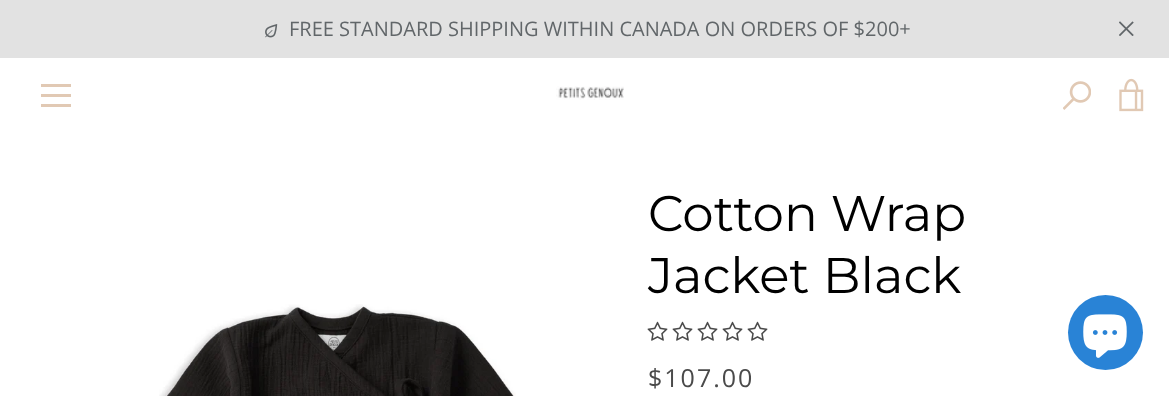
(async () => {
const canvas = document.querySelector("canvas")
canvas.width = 1169
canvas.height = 396
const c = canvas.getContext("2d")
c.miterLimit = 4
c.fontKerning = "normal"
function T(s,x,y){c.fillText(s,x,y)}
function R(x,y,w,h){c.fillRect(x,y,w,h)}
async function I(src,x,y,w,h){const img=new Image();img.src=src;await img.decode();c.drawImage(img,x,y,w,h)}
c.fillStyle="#fff"
R(0,0,1169,396)
c.fillStyle="#e2e2e2"
R(0,0,1169,58)
await I("1.png",265,24,13,14)
c.font="20px Open Sans"
c.fillStyle="#616669"
T("FREE STANDARD SHIPPING WITHIN CANADA ON ORDERS OF $200+",289,36)
await I("2.png",1119,21,15,15)
c.fillStyle="#e1c9b4"
R(41,84,30,3)
R(41,94,30,3)
R(41,104,30,3)
await I("3.png",556,86,68,14)
await I("4.png",1063,81,28,29)
await I("5.png",1119,78,25,34)
await I("6.png",159,304,357,92)
c.font="50px Montserrat"
c.fillStyle="#000"
T("Cotton Wrap",648,231)
T("Jacket Black",648,293)
await I("7.png",647,321,21,20)
await I("7.png",672,321,21,20)
await I("7.png",697,321,21,20)
await I("7.png",722,321,21,20)
await I("7.png",747,321,21,20)
c.letterSpacing="2px"
c.font="25px Open Sans"
c.fillStyle="#4a4a4a"
T("$107.00",648,387)
c.fillStyle="#2983d6"
c.beginPath()
c.arc(1105.5,332.5,37.5,0,7)
c.fill()
await I("8.png",1083,314,44,44)
})()
